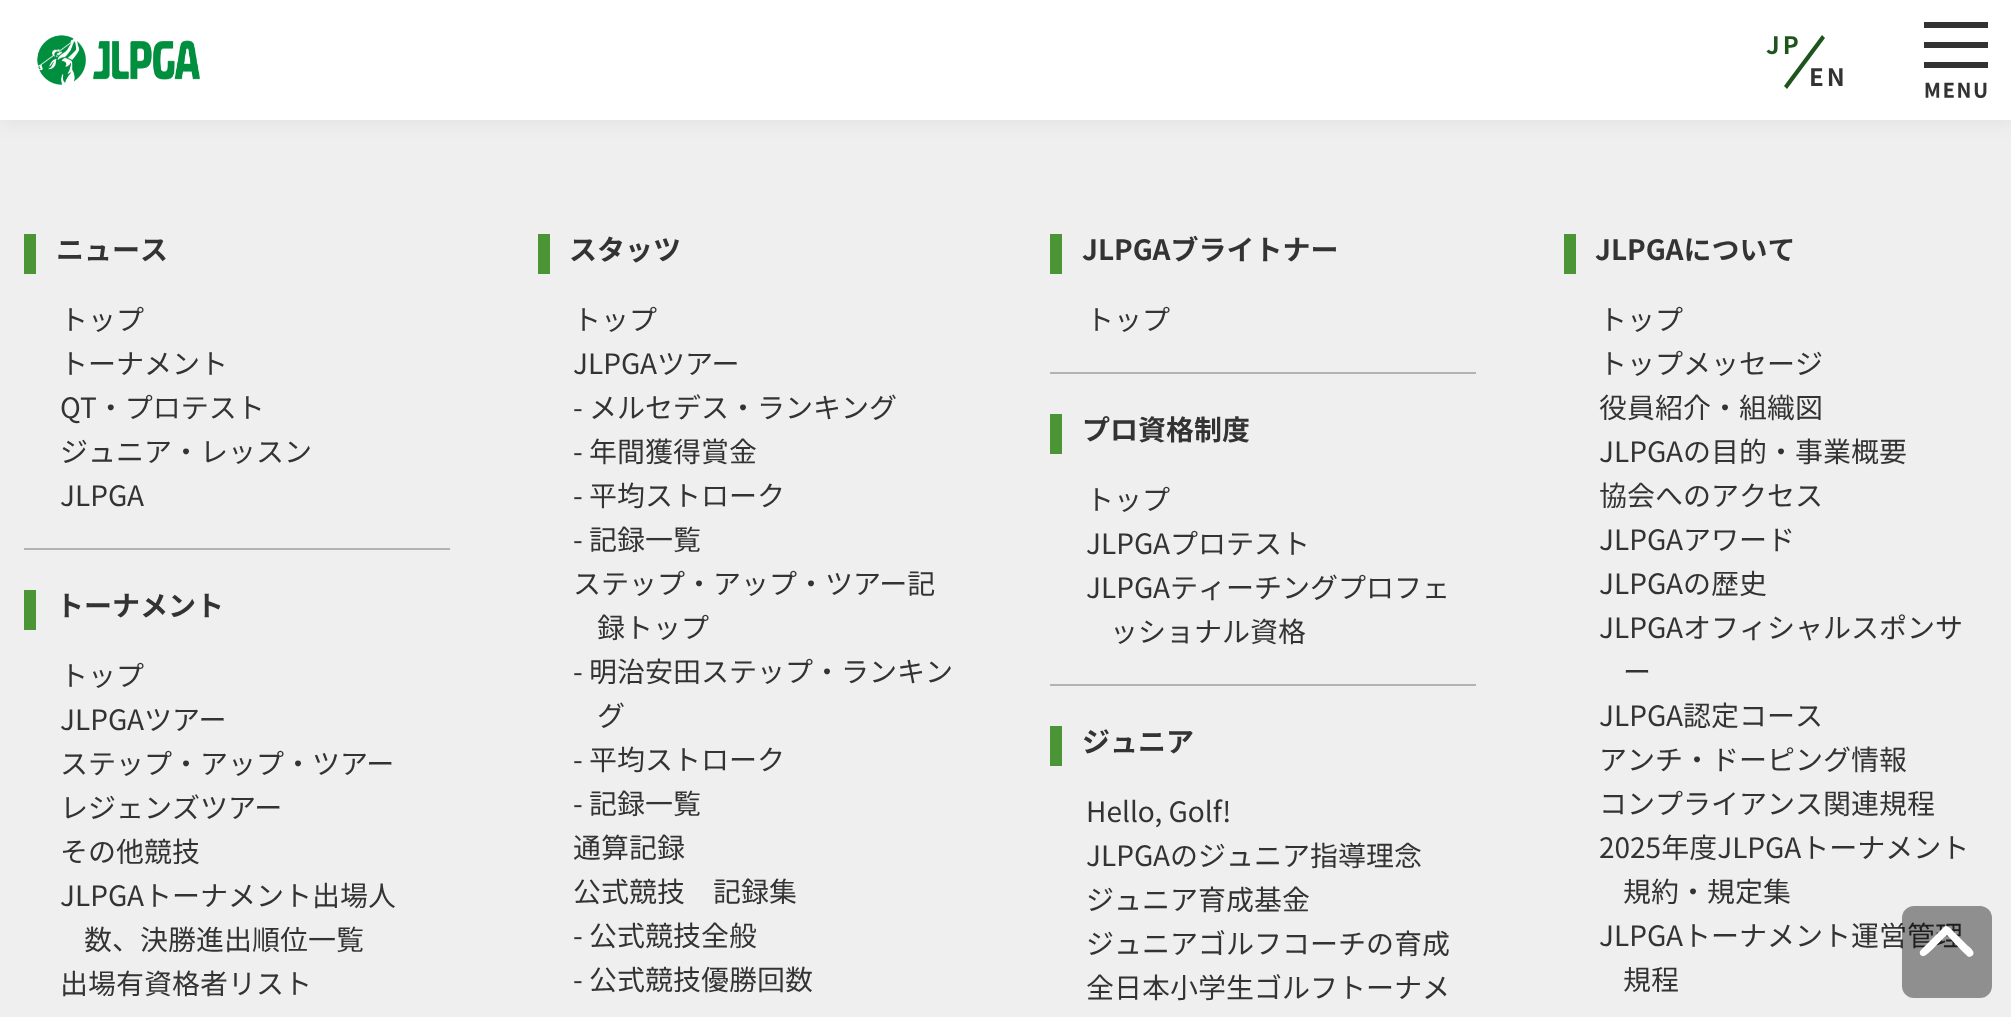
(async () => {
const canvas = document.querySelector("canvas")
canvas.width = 2011
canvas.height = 1017
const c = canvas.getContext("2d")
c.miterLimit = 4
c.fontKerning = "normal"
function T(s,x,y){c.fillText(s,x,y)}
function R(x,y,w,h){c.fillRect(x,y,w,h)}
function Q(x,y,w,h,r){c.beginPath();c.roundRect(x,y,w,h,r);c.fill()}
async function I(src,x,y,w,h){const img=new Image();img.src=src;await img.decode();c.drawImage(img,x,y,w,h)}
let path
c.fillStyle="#efefef"
R(0,0,2011,1017)
c.fillStyle="#0000000f"
c.filter="blur(10px)"
c.beginPath()
c.rect(0,2,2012,120)
c.fill()
c.filter="none"
c.fillStyle="#fff"
R(0,0,2011,120)
await I("1.png",37,35,163,50)
c.letterSpacing="3px"
c.font="bold 24px Noto Sans JP"
c.fillStyle="#1e551e"
T("JP",1766,54)
path = new Path2D("M1784 86l38-51l3 3l-38 51z")
c.fill(path)
c.fillStyle="#333"
T("EN",1809,86)
await I("2.png",1924,22,64,76)
c.fillStyle="#4c9536"
R(24,234,12,40)
c.letterSpacing="0px"
c.font="bold 28px Noto Sans JP"
c.fillStyle="#333"
T("ニュース",56,260)
c.font="28px Noto Sans JP"
T("トップ",60,330)
T("トーナメント",60,374)
T("QT・プロテスト",60,418)
T("ジュニア・レッスン",60,462)
T("JLPGA",60,506)
c.fillStyle="#b3b3b3"
R(24,548,426,2)
c.fillStyle="#4c9536"
R(24,590,12,40)
c.font="bold 28px Noto Sans JP"
c.fillStyle="#333"
T("トーナメント",56,616)
c.font="28px Noto Sans JP"
T("トップ",60,686)
T("JLPGAツアー",60,730)
T("ステップ・アップ・ツアー",60,774)
T("レジェンズツアー",60,818)
T("その他競技",60,862)
T("JLPGAトーナメント出場人",60,906)
T("数、決勝進出順位一覧",84,950)
T("出場有資格者リスト",60,994)
c.fillStyle="#4c9536"
R(538,234,12,40)
c.font="bold 28px Noto Sans JP"
c.fillStyle="#333"
T("スタッツ",569,260)
c.font="28px Noto Sans JP"
T("トップ",573,330)
T("JLPGAツアー",573,374)
T("- メルセデス・ランキング",573,418)
T("- 年間獲得賞金",573,462)
T("- 平均ストローク",573,506)
T("- 記録一覧",573,550)
T("ステップ・アップ・ツアー記",573,594)
T("録トップ",597,638)
T("- 明治安田ステップ・ランキン",573,682)
T("グ",597,726)
T("- 平均ストローク",573,770)
T("- 記録一覧",573,814)
T("通算記録",573,858)
T("公式競技 記録集",573,902)
T("- 公式競技全般",573,946)
T("- 公式競技優勝回数",573,990)
c.fillStyle="#4c9536"
R(1050,234,12,40)
c.font="bold 28px Noto Sans JP"
c.fillStyle="#333"
T("JLPGAブライトナー",1082,260)
c.font="28px Noto Sans JP"
T("トップ",1086,330)
c.fillStyle="#b3b3b3"
R(1050,372,426,2)
c.fillStyle="#4c9536"
R(1050,414,12,40)
c.font="bold 28px Noto Sans JP"
c.fillStyle="#333"
T("プロ資格制度",1082,440)
c.font="28px Noto Sans JP"
T("トップ",1086,510)
T("JLPGAプロテスト",1086,554)
T("JLPGAティーチングプロフェ",1086,598)
T("ッショナル資格",1110,642)
c.fillStyle="#b3b3b3"
R(1050,684,426,2)
c.fillStyle="#4c9536"
R(1050,726,12,40)
c.font="bold 28px Noto Sans JP"
c.fillStyle="#333"
T("ジュニア",1082,752)
c.font="28px Noto Sans JP"
T("Hello, Golf!",1086,822)
T("JLPGAのジュニア指導理念",1086,866)
T("ジュニア育成基金",1086,910)
T("ジュニアゴルフコーチの育成",1086,954)
T("全日本小学生ゴルフトーナメ",1086,998)
c.fillStyle="#4c9536"
R(1564,234,12,40)
c.font="bold 28px Noto Sans JP"
c.fillStyle="#333"
T("JLPGAについて",1595,260)
c.font="28px Noto Sans JP"
T("トップ",1599,330)
T("トップメッセージ",1599,374)
T("役員紹介・組織図",1599,418)
T("JLPGAの目的・事業概要",1599,462)
T("協会へのアクセス",1599,506)
T("JLPGAアワード",1599,550)
T("JLPGAの歴史",1599,594)
T("JLPGAオフィシャルスポンサ",1599,638)
T("ー",1623,682)
T("JLPGA認定コース",1599,726)
T("アンチ・ドーピング情報",1599,770)
T("コンプライアンス関連規程",1599,814)
T("2025年度JLPGAトーナメント",1599,858)
T("規約・規定集",1623,902)
T("JLPGAトーナメント運営管理",1599,946)
T("規程",1623,990)
c.fillStyle="#00000066"
Q(1902,906,90,92,12)
c.fillStyle="#fff"
path = new Path2D("M1944 927c3-3 7 2 9 4l15 15c3 2 7 6 5 9c-1 1-3 2-4 2c-3-1-19-19-22-22c-4 3-20 21-23 21c-3 1-6-3-3-6z")
c.fill(path)
})()
